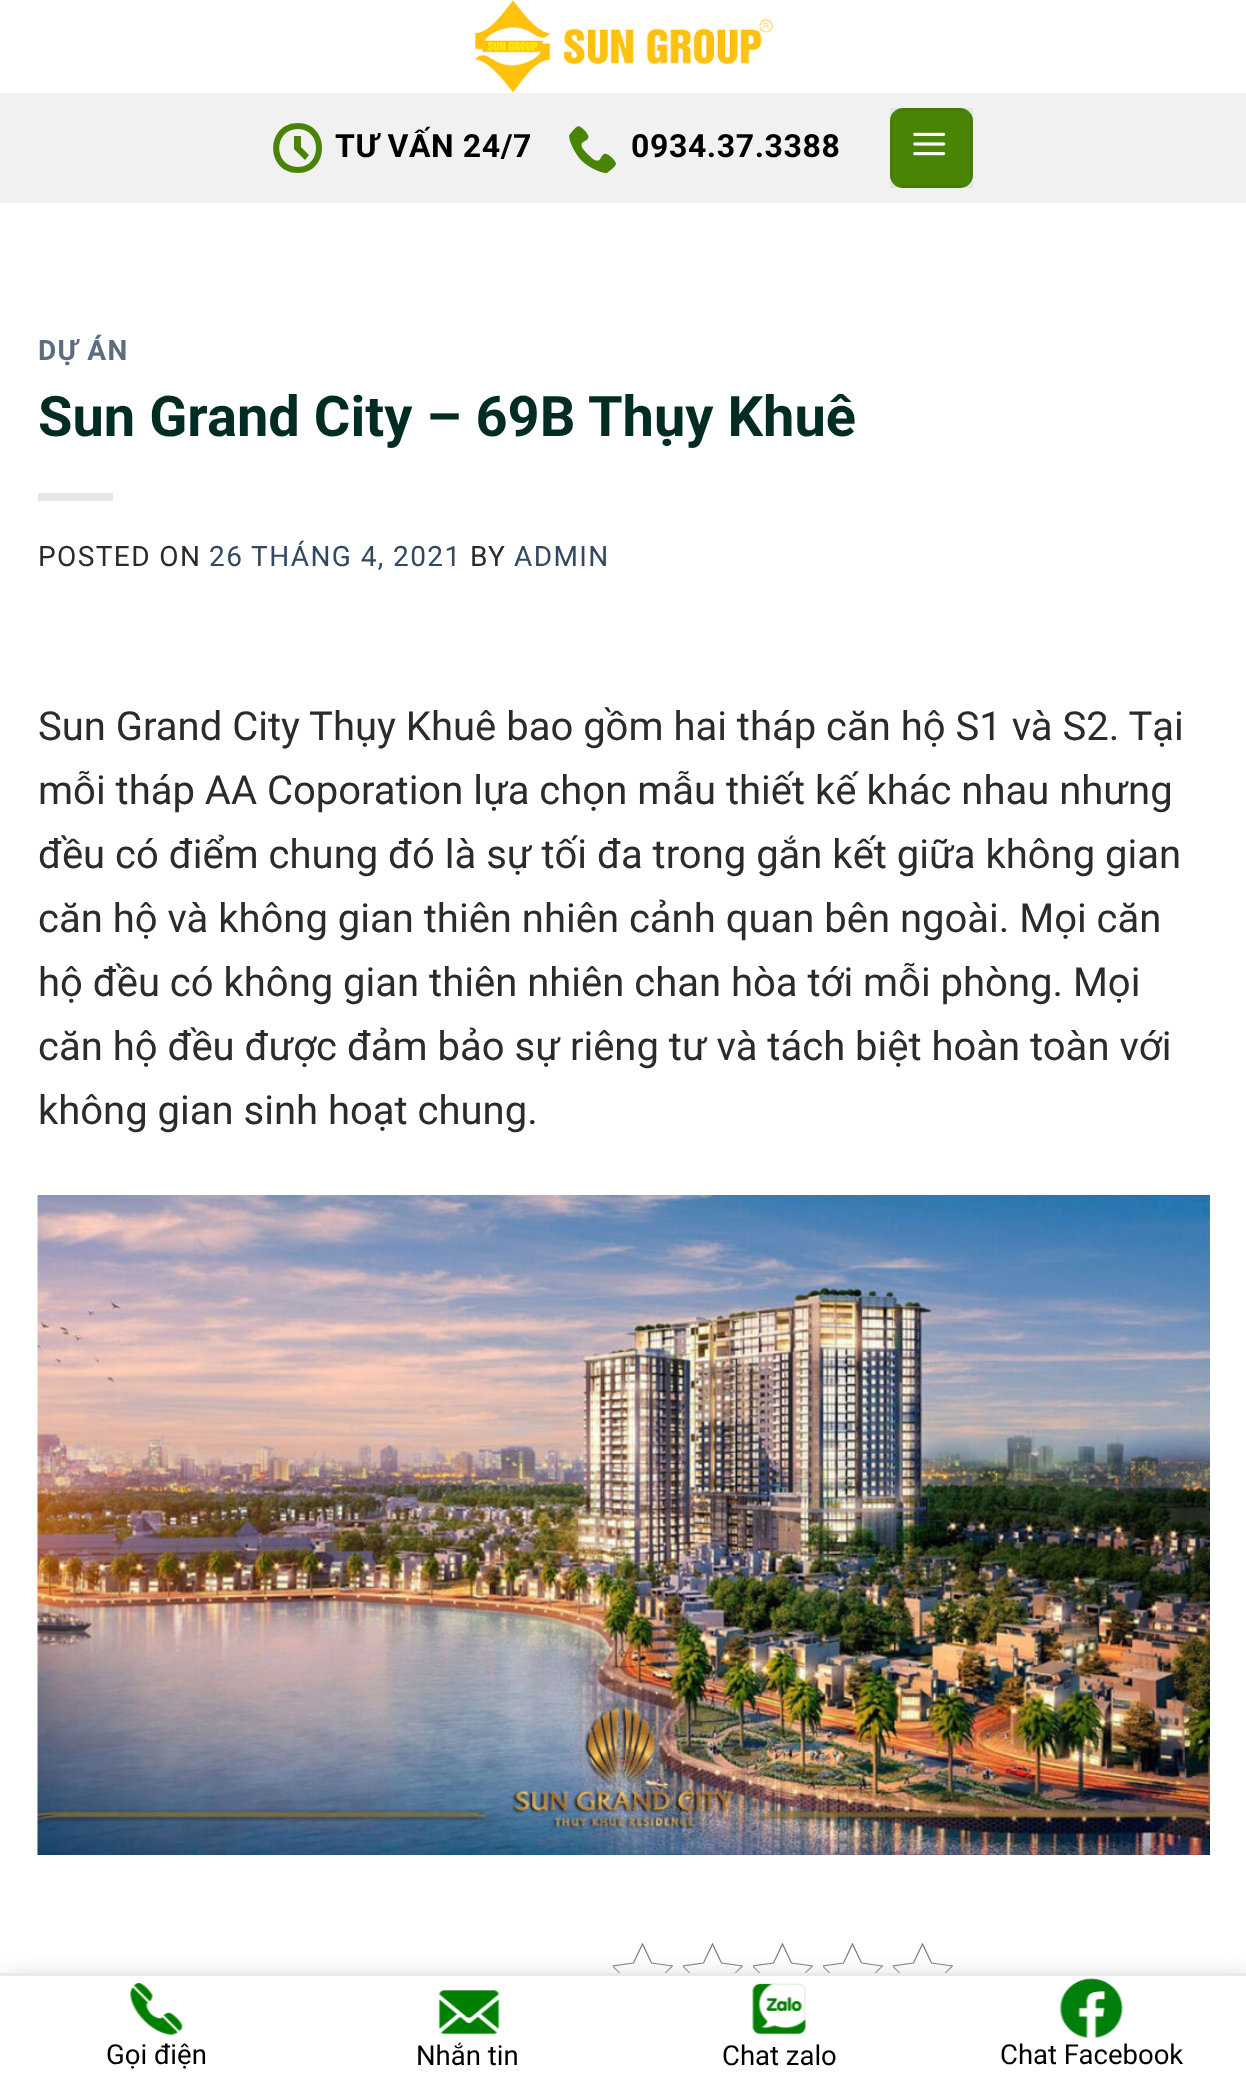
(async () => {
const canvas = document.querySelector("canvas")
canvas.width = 1246
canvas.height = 2095
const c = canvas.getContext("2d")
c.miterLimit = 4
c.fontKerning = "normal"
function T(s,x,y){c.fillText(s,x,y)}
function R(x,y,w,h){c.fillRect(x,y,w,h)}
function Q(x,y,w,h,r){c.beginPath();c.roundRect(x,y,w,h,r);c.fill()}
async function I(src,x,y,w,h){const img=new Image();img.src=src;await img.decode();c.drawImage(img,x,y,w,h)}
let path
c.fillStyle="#fff"
R(0,0,1246,2095)
await I("1.png",475,0,298,93)
c.fillStyle="#f1f1f1"
R(0,93,1246,110)
c.fillStyle="#498404"
path = new Path2D("M305 160l-11-11v-13h7v11l8 8zm-7-37c-33 0-33 50 0 50c32 0 32-50 0-50zm0 44c-25 0-25-38 0-38c24 0 24 38 0 38z")
c.fill(path)
c.letterSpacing="0.6px"
c.font="bold 32px Roboto"
c.fillStyle="#000"
T("TƯ VẤN 24/7",335,157)
await I("2.png",569,126,47,48)
T("0934.37.3388",631,157)
c.fillStyle="#498404"
Q(890,108,83,80,13)
c.strokeStyle="#0000000d"
c.lineWidth=3
c.strokeRect(891.5,109.5,80,77)
await I("3.png",913,132,33,24)
c.letterSpacing="1.4px"
c.font="bold 28px Roboto"
c.fillStyle="#5c6d81"
T("DỰ ÁN",38,360)
c.letterSpacing="0px"
c.font="bold 56px Roboto"
c.fillStyle="#012c23"
T("Sun Grand City – 69B Thụy Khuê",38,436)
c.fillStyle="#e6e6e6"
R(38,493,75,8)
c.letterSpacing="1.4px"
c.font="28px Roboto"
c.fillStyle="#2b2b2b"
T("POSTED ON",38,566)
c.fillStyle="#334862"
T("26 THÁNG 4, 2021",209,566)
c.fillStyle="#2b2b2b"
T("BY",470,566)
c.fillStyle="#334862"
T("ADMIN",514,566)
c.letterSpacing="0px"
c.font="40px Roboto"
c.fillStyle="#2b2b2b"
T("Sun Grand City Thụy Khuê bao gồm hai tháp căn hộ S1 và S2. Tại",38,740)
T("mỗi tháp AA Coporation lựa chọn mẫu thiết kế khác nhau nhưng",38,804)
T("đều có điểm chung đó là sự tối đa trong gắn kết giữa không gian",38,868)
T("căn hộ và không gian thiên nhiên cảnh quan bên ngoài. Mọi căn",38,932)
T("hộ đều có không gian thiên nhiên chan hòa tới mỗi phòng. Mọi",38,996)
T("căn hộ đều được đảm bảo sự riêng tư và tách biệt hoàn toàn với",38,1060)
T("không gian sinh hoạt chung.",38,1124)
await I("4.png",37,1195,1173,660)
c.save()
c.beginPath()
c.rect(613,1943,60,60)
c.clip()
path = new Path2D("M642.5 1944l9 19l21 3l-15 14.5l3.5 20.5l-18.5-10l-18.5 10l3.5-20.5l-15-14.5l21-3z")
c.strokeStyle="#777"
c.lineWidth=1.2
c.stroke(path)
c.restore()
c.save()
c.beginPath()
c.rect(683,1943,60,60)
c.clip()
path = new Path2D("M712.5 1944l9 19l21 3l-15 14.5l3.5 20.5l-18.5-10l-18.5 10l3.5-20.5l-15-14.5l21-3z")
c.strokeStyle="#777"
c.lineWidth=1.2
c.stroke(path)
c.restore()
c.save()
c.beginPath()
c.rect(753,1943,60,60)
c.clip()
path = new Path2D("M782.5 1944l9 19l21 3l-15 14.5l3.5 20.5l-18.5-10l-18.5 10l3.5-20.5l-15-14.5l21-3z")
c.strokeStyle="#777"
c.lineWidth=1.2
c.stroke(path)
c.restore()
c.save()
c.beginPath()
c.rect(823,1943,60,60)
c.clip()
path = new Path2D("M852.5 1944l9 19l21 3l-15 14.5l3.5 20.5l-18.5-10l-18.5 10l3.5-20.5l-15-14.5l21-3z")
c.strokeStyle="#777"
c.lineWidth=1.2
c.stroke(path)
c.restore()
c.save()
c.beginPath()
c.rect(893,1943,60,60)
c.clip()
path = new Path2D("M922.5 1944l9 19l21 3l-15 14.5l3.5 20.5l-18.5-10l-18.5 10l3.5-20.5l-15-14.5l21-3z")
c.strokeStyle="#777"
c.lineWidth=1.2
c.stroke(path)
c.restore()
c.fillStyle="#dedede"
c.filter="blur(11px)"
c.beginPath()
c.rect(5,1975,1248,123)
c.fill()
c.filter="none"
c.fillStyle="#fff"
R(0,1976,1246,119)
c.fillStyle="#eaeaea"
R(0,1973,1246,3)
await I("5.png",129,1982,54,53)
c.font="27.5px Roboto"
c.fillStyle="#000"
T("Gọi điện",106,2064)
await I("6.png",438,1990,62,45)
T("Nhắn tin",416,2065)
await I("7.png",752,1983,54,52)
T("Chat zalo",722,2065)
await I("8.png",1059,1978,64,61)
T("Chat Facebook",1000,2064)
})()
